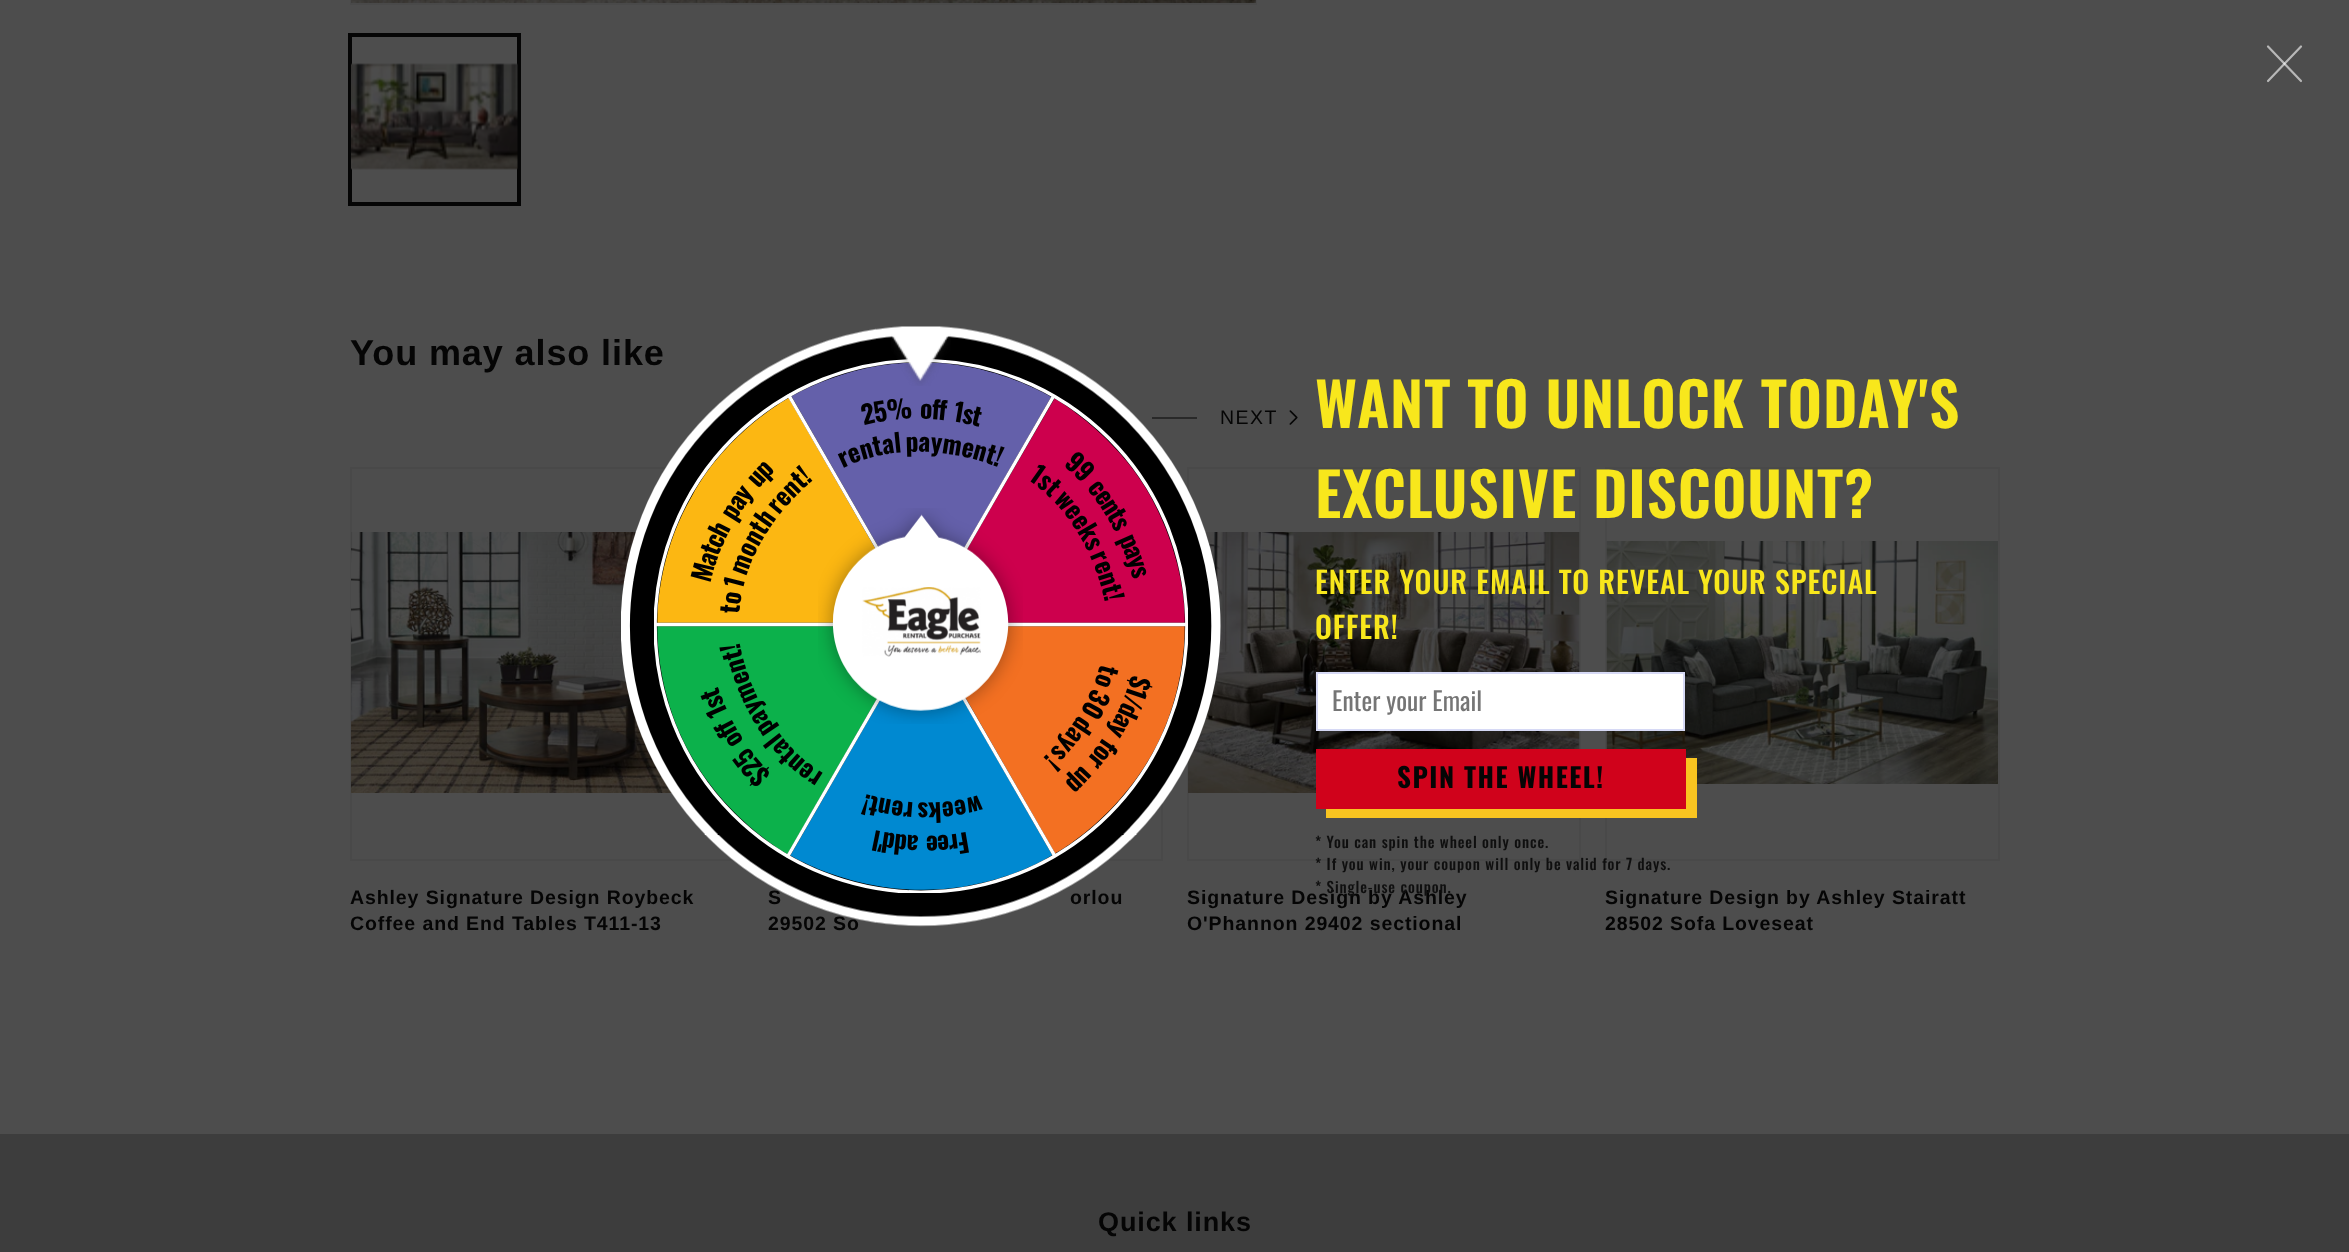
(async () => {
const canvas = document.querySelector("canvas")
canvas.width = 2349
canvas.height = 1252
const c = canvas.getContext("2d")
c.miterLimit = 4
c.fontKerning = "normal"
function T(s,x,y){c.fillText(s,x,y)}
function R(x,y,w,h){c.fillRect(x,y,w,h)}
async function I(src,x,y,w,h){const img=new Image();img.src=src;await img.decode();c.drawImage(img,x,y,w,h)}
let path
c.fillStyle="#4d4d4d"
R(0,0,2349,1252)
c.strokeStyle="#494949"
c.lineWidth=2
c.strokeRect(351,-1,905,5)
await I("1.png",351,0,905,3)
c.strokeStyle="#050505"
c.strokeRect(349,34,171,171)
c.strokeRect(351,36,167,167)
await I("2.png",351,63,167,107)
c.letterSpacing="0.9px"
c.font="bold 36px Liberation Sans"
c.fillStyle="#050505"
T("You may also like",350,365)
c.fillStyle="#292929"
R(1152,417,45,2)
c.letterSpacing="1.5px"
c.font="19.5px Liberation Sans"
c.fillStyle="#050505"
T("NEXT",1220,424)
await I("3.png",1289,410,9,15)
c.strokeStyle="#494949"
c.strokeRect(351,468,392,392)
await I("4.png",351,532,321,261)
c.letterSpacing="0.9px"
c.font="bold 19.5px Liberation Sans"
T("Ashley Signature Design Roybeck",350,904)
T("Coffee and End Tables T411-13",350,930)
c.strokeRect(769,468,393,392)
await I("5.png",856,532,118,203)
T("S",768,904)
T("orlou",1070,904)
T("29502 So",768,930)
c.strokeRect(1188,468,392,392)
await I("6.png",1188,532,392,261)
T("Signature Design by Ashley",1187,904)
T("O'Phannon 29402 sectional",1187,930)
c.strokeRect(1606,468,393,392)
await I("7.png",1606,541,392,243)
T("Signature Design by Ashley Stairatt",1605,904)
T("28502 Sofa Loveseat",1605,930)
path = new Path2D("M2301 46.5l-33 34.5")
c.strokeStyle="#b8b8b8"
c.lineWidth=2.2
c.lineCap="round"
c.stroke(path)
path = new Path2D("M2268 46.5l33 34.5")
c.strokeStyle="#ffffff99"
c.stroke(path)
await I("8.png",621,326,600,601)
await I("10.png",654,359,534,534)
await I("9.png",891,334,60,52)
await I("11.png",818,508,205,216)
await I("12.png",862,587,119,70)
c.font="600 60px Oswald"
c.fillStyle="#f8e71c"
T("WANT TO UNLOCK TODAY'S",1315,428)
T("EXCLUSIVE DISCOUNT?",1315,518)
c.font="500 30px Oswald"
T("ENTER YOUR EMAIL TO REVEAL YOUR SPECIAL",1315,594)
T("OFFER!",1315,639)
c.fillStyle="#fff"
c.beginPath()
c.rect(1317,673,367,57)
c.fill()
c.strokeStyle="#d6d9f5"
c.lineWidth=2
c.stroke()
c.letterSpacing="0px"
c.font="25.5px Oswald"
c.fillStyle="#757575"
T("Enter your Email",1332,711)
c.fillStyle="#f9c420"
path = new Path2D("M1326 808v10h371v-60h-11v50z")
c.fill(path)
c.fillStyle="#d0021b"
R(1316,749,370,60)
c.letterSpacing="1.5px"
c.font="bold 27px Oswald"
c.fillStyle="#050505"
T("SPIN THE WHEEL!",1397,788)
c.letterSpacing="0.9px"
c.font="500 15px Oswald"
c.fillStyle="#0f0f0f"
T("* You can spin the wheel only once.",1315,848)
T("* If you win, your coupon will only be valid for 7 days.",1315,870)
T("* Single-use coupon.",1315,893)
c.fillStyle="#3d3d3d"
R(0,1134,2349,118)
c.font="bold 27px Liberation Sans"
c.fillStyle="#050505"
T("Quick links",1098,1231)
})()
